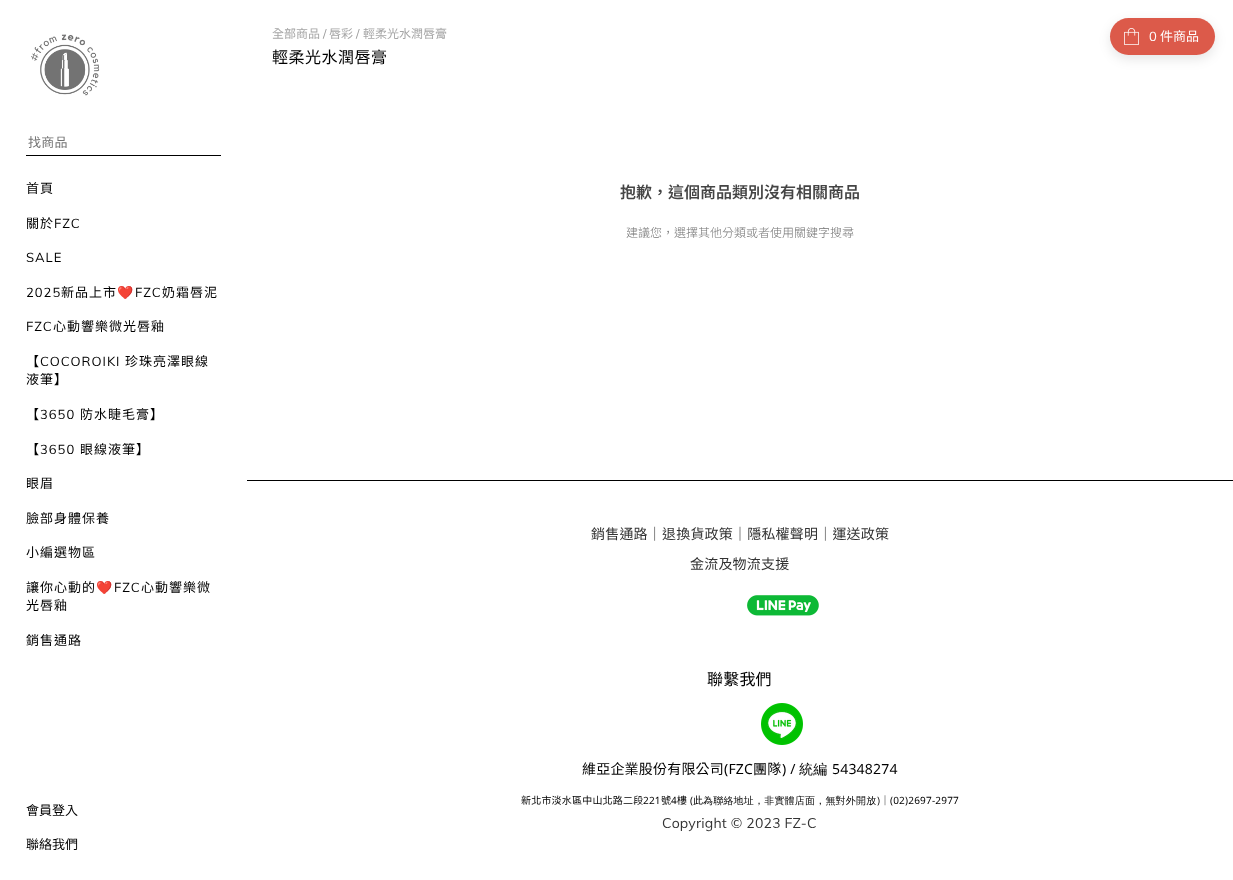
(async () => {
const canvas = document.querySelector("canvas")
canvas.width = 1233
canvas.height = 880
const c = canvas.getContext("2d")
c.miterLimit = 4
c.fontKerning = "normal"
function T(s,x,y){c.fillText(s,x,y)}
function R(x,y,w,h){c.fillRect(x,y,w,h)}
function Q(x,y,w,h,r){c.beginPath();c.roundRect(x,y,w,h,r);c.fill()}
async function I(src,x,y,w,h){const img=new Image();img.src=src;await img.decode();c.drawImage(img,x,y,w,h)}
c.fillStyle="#fff"
R(0,0,1233,880)
c.font="12px Noto Sans TC"
c.fillStyle="#a5a5a5"
T("全部商品",272,38)
c.font="12px Muli"
c.fillStyle="#9b9b9b"
T("/",323,38)
c.font="12px Noto Sans TC"
c.fillStyle="#a5a5a5"
T("唇彩",329,38)
c.font="12px Muli"
c.fillStyle="#9b9b9b"
T("/",356,38)
c.font="12px Noto Sans TC"
c.fillStyle="#a5a5a5"
T("輕柔光水潤唇膏",363,38)
c.letterSpacing="0.5px"
c.font="16px Noto Sans TC"
c.fillStyle="#000"
T("輕柔光水潤唇膏",272,63)
c.letterSpacing="0px"
c.font="600 16px Noto Sans TC"
c.fillStyle="#444"
T("抱歉，這個商品類別沒有相關商品",620,198)
c.font="300 12px Noto Sans TC"
c.fillStyle="#737373"
T("建議您，選擇其他分類或者使用關鍵字搜尋",626,237)
c.fillStyle="#0000001a"
c.filter="blur(6px)"
c.beginPath()
c.roundRect(1110,22,105,37,18.5)
c.fill()
c.filter="none"
c.fillStyle="#dc5a4a"
Q(1110,18,105,37,18.5)
await I("1.png",1124,28,15,17)
c.font="13px Muli"
c.fillStyle="#fff"
T("0",1149,41)
c.font="13px Noto Sans TC"
T("件商品",1160,41)
await I("2.png",31,34,69,62)
c.fillStyle="#000"
R(26,155,195,1)
c.letterSpacing="0.2px"
c.fillStyle="#737373"
T("找商品",28,147)
c.letterSpacing="1px"
c.fillStyle="#000"
T("首頁",26,193)
T("關於",26,228)
c.font="13px Muli"
T("FZC",54,228)
T("SALE",26,262)
T("2025",26,297)
c.font="13px Noto Sans TC"
T("新品上市",61,297)
c.font="13px Noto Color Emoji"
T("❤️",117,297)
c.font="13px Muli"
T("FZC",135,297)
c.font="13px Noto Sans TC"
T("奶霜唇泥",162,297)
c.font="13px Muli"
T("FZC",26,331)
c.font="13px Noto Sans TC"
T("心動響樂微光唇釉",53,331)
T("【",26,366)
c.font="13px Muli"
T("COCOROIKI",40,366)
c.font="13px Noto Sans TC"
T("珍珠亮澤眼線",125,366)
T("液筆】",26,384)
T("【",26,419)
c.font="13px Muli"
T("3650",40,419)
c.font="13px Noto Sans TC"
T("防水睫毛膏】",80,419)
T("【",26,454)
c.font="13px Muli"
T("3650",40,454)
c.font="13px Noto Sans TC"
T("眼線液筆】",80,454)
T("眼眉",26,488)
T("臉部身體保養",26,523)
T("小編選物區",26,557)
T("讓你心動的",26,592)
c.font="13px Noto Color Emoji"
T("❤️",96,592)
c.font="13px Muli"
T("FZC",114,592)
c.font="13px Noto Sans TC"
T("心動響樂微",141,592)
T("光唇釉",26,610)
T("銷售通路",26,645)
c.letterSpacing="0px"
T("會員登入",26,815)
T("聯絡我們",26,849)
R(247,480,986,1)
c.letterSpacing="0.2px"
c.font="14px Noto Sans TC"
c.fillStyle="#333"
T("銷售通路｜退換貨政策｜隱私權聲明｜運送政策",591,539)
T("金流及物流支援",690,569)
await I("3.png",747,595,72,21)
c.font="16px Noto Sans TC"
c.fillStyle="#000"
T("聯繫我們",707,685)
await I("4.png",761,703,42,42)
c.font="14px Noto Sans TC"
T("維亞企業股份有限公司",582,774)
c.font="14px Noto Sans"
T("(FZC",724,774)
c.font="14px Noto Sans TC"
T("團隊",753,774)
c.font="14px Noto Sans"
T(") /",782,774)
c.font="500 14px WenQuanYi Zen Hei"
T("統編",799,774)
c.font="14px Noto Sans"
T("54348274",832,774)
c.font="10px Noto Sans TC"
T("新北市淡水區中山北路二段",521,804)
c.font="10px Noto Sans"
T("221",643,804)
c.font="10px Noto Sans TC"
T("號",661,804)
c.font="10px Noto Sans"
T("4",671,804)
c.font="10px Noto Sans TC"
T("樓",677,804)
c.font="10px Noto Sans"
T("(",690,804)
c.font="10px Noto Sans TC"
T("此",693,804)
c.font="500 10px WenQuanYi Zen Hei"
T("為聯絡地址，非實體店面，無對外開放",703,804)
c.font="10px Open Sans"
T(")",877,804)
c.font="10px Noto Sans TC"
T("｜",880,804)
c.font="10px Noto Sans"
T("(02)2697-2977",890,804)
c.font="14px Muli"
c.fillStyle="#333"
T("Copyright © 2023 FZ-C",662,828)
})()
